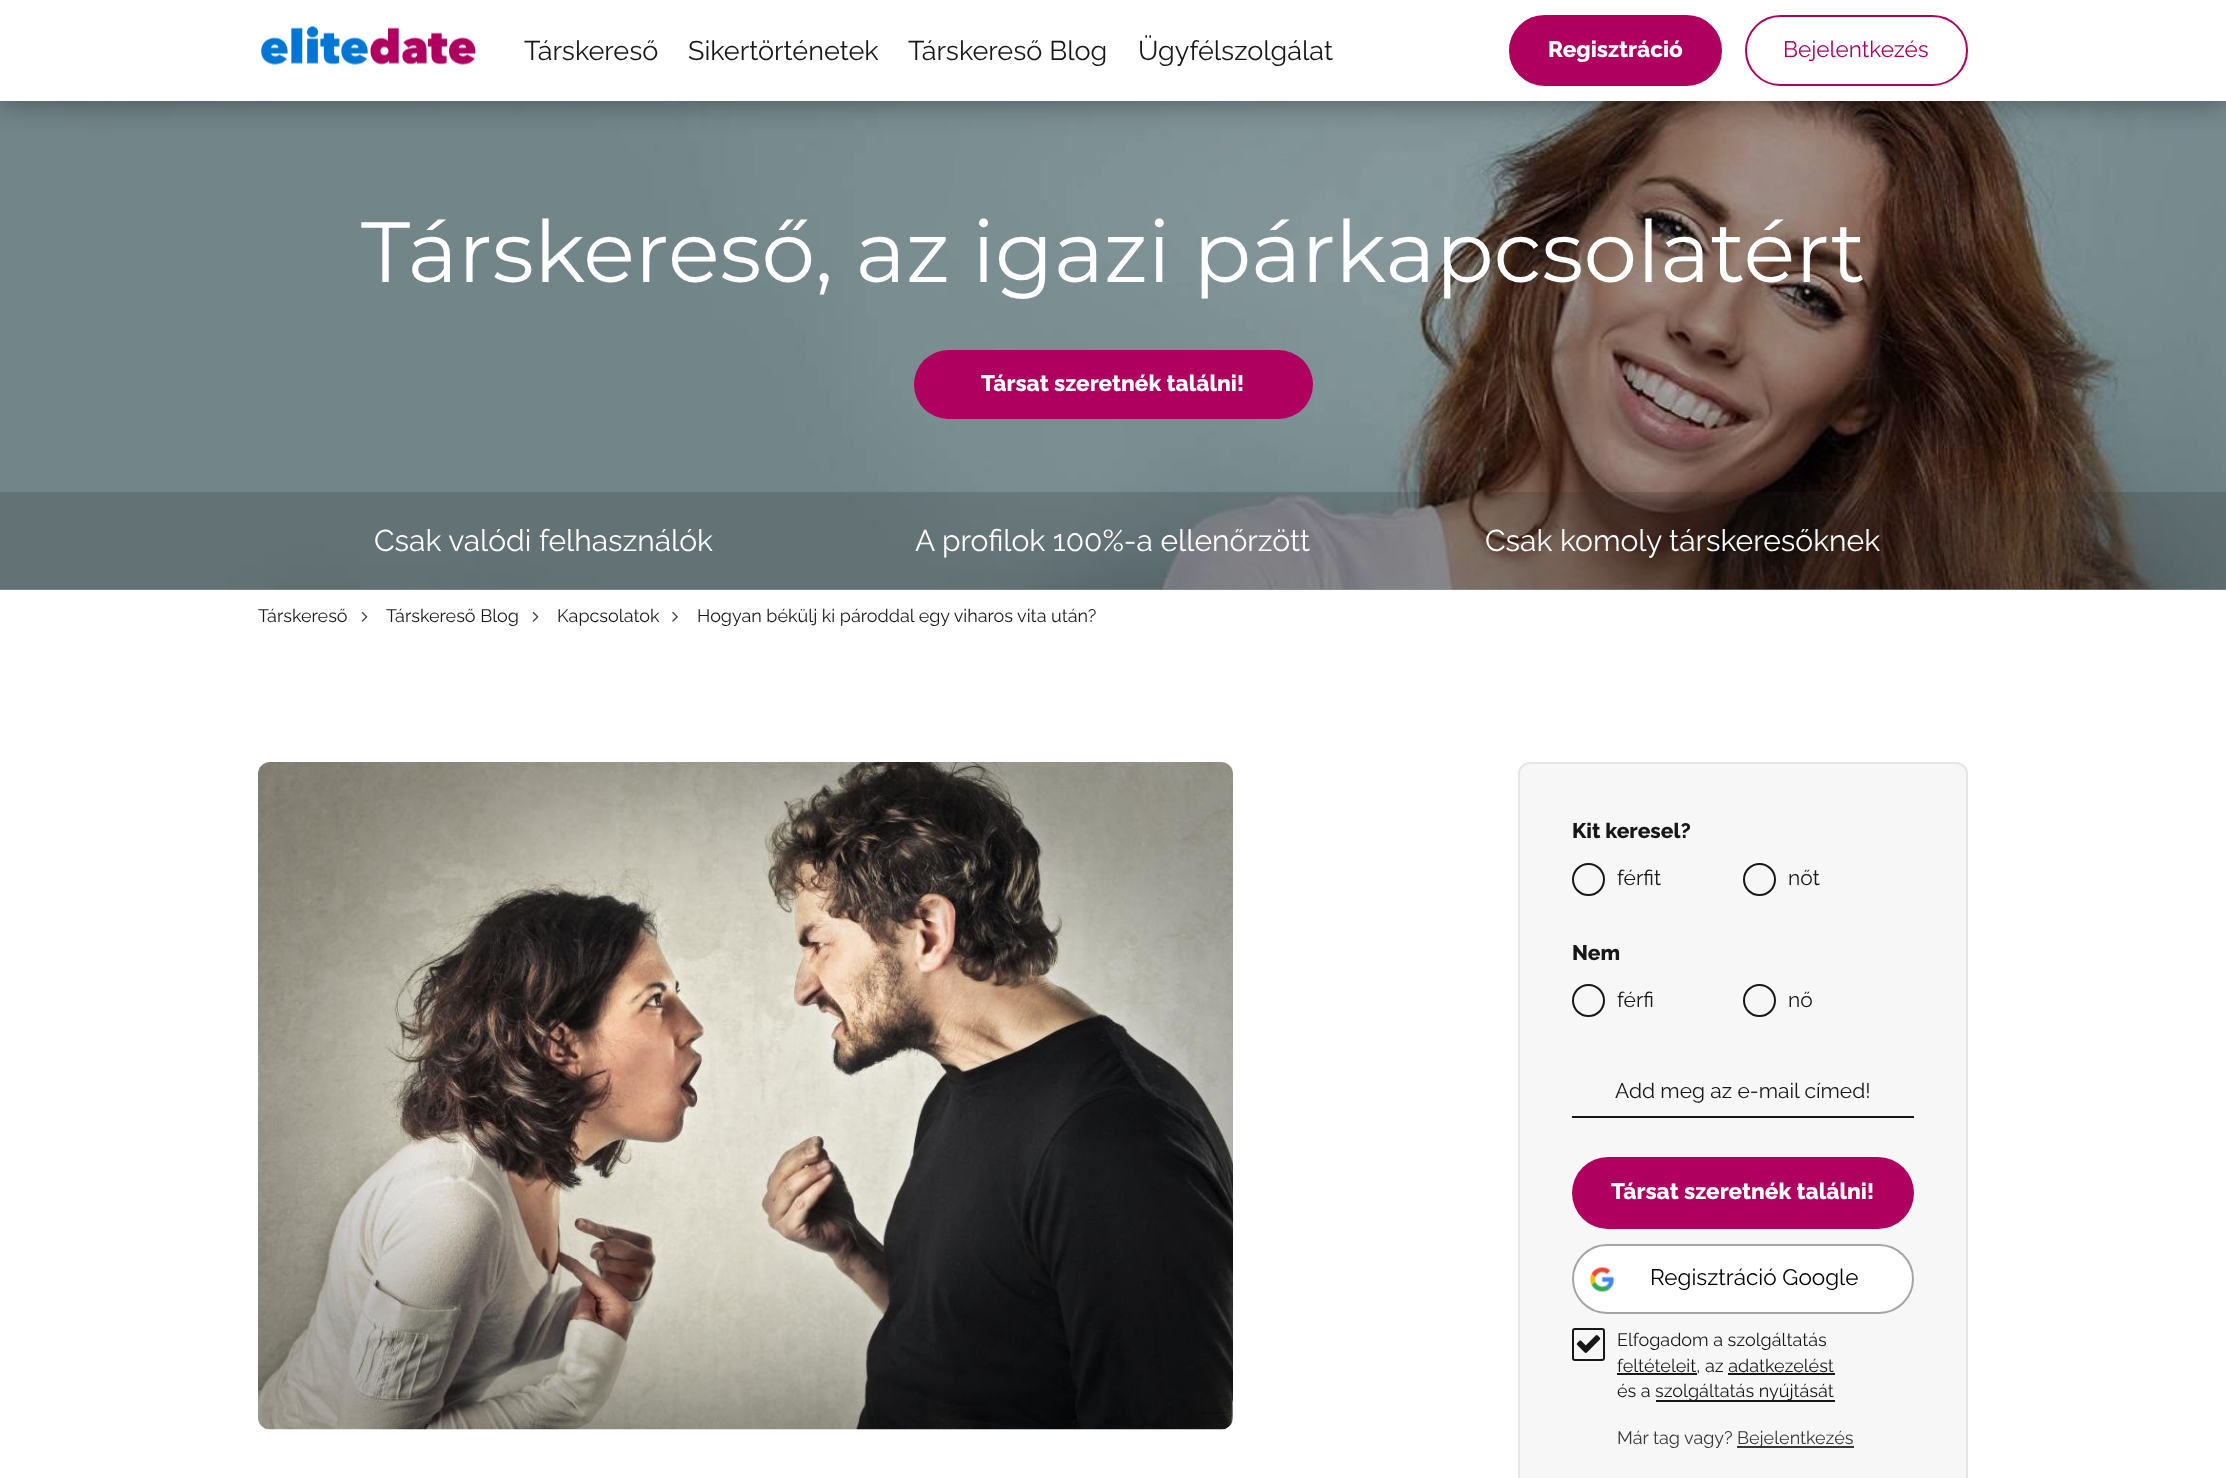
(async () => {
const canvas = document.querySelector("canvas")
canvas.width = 2226
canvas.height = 1478
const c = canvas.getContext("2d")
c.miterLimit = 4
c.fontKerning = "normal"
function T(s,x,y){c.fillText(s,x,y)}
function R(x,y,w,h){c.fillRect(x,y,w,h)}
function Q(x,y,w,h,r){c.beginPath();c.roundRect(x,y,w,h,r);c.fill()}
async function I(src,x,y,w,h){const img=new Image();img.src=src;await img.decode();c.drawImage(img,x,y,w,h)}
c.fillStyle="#fff"
R(0,0,2226,1478)
c.fillStyle="#a2b7bc"
R(0,589,2226,1)
await I("2.png",0,101,2226,489)
c.fillStyle="#00000066"
c.filter="blur(15px)"
c.beginPath()
c.rect(0,0,2226,101)
c.fill()
c.filter="none"
c.fillStyle="#fff"
R(0,0,2226,101)
await I("1.png",261,26,215,39)
c.font="27px Raleway"
c.fillStyle="#171717"
T("Társkereső",524,60)
T("Sikertörténetek",688,60)
T("Társkereső Blog",908,60)
T("Ügyfélszolgálat",1138,60)
c.fillStyle="#af005f"
c.beginPath()
c.roundRect(1510,16,211,69,34.5)
c.fill()
c.strokeStyle="#af005f"
c.lineWidth=2
c.stroke()
c.font="800 22.5px Raleway"
c.fillStyle="#fff"
T("Regisztráció",1548,57)
c.beginPath()
c.roundRect(1746,16,221,69,34.5)
c.stroke()
c.font="22.5px Raleway"
c.fillStyle="#af005f"
T("Bejelentkezés",1783,57)
c.font="100 85.5px Montserrat"
c.fillStyle="#fff"
T("Társkereső, az igazi párkapcsolatért",361,282)
c.fillStyle="#af005f"
Q(914,350,399,69,34.5)
c.font="800 22.5px Raleway"
c.fillStyle="#fff"
T("Társat szeretnék találni!",981,391)
c.fillStyle="#27272733"
R(0,492,2226,98)
c.font="30px Raleway"
c.fillStyle="#fff"
T("Csak valódi felhasználók",374,551)
T("A profilok 100%-a ellenőrzött",915,551)
T("Csak komoly társkeresőknek",1485,551)
c.font="18px Raleway"
c.fillStyle="#171717"
T("Társkereső",258,622)
await I("3.png",361,611,7,11)
T("Társkereső Blog",386,622)
await I("3.png",532,611,7,11)
T("Kapcsolatok",557,622)
await I("4.png",672,611,6,11)
T("Hogyan békülj ki pároddal egy viharos vita után?",697,622)
await I("5.png",258,762,975,668)
c.fillStyle="#f7f7f7"
c.beginPath()
c.roundRect(1519,763,448,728,11)
c.fill()
c.strokeStyle="#e5e5e5"
c.stroke()
c.font="800 21px Raleway"
c.fillStyle="#171717"
T("Kit keresel?",1572,838)
c.beginPath()
c.arc(1588.5,879.5,15.5,0,7)
c.strokeStyle="#171717"
c.stroke()
c.font="21px Raleway"
T("férfit",1617,885)
c.beginPath()
c.arc(1759.5,879.5,15.5,0,7)
c.stroke()
T("nőt",1788,885)
c.font="800 21px Raleway"
T("Nem",1572,960)
c.beginPath()
c.arc(1588.5,1000.5,15.5,0,7)
c.stroke()
c.font="21px Raleway"
T("férfi",1617,1007)
c.beginPath()
c.arc(1759.5,1000.5,15.5,0,7)
c.stroke()
T("nő",1788,1007)
R(1572,1116,342,2)
T("Add meg az e-mail címed!",1615,1098)
c.fillStyle="#af005f"
Q(1572,1157,342,72,36)
c.font="800 22.5px Raleway"
c.fillStyle="#fff"
T("Társat szeretnék találni!",1611,1199)
c.beginPath()
c.roundRect(1573,1245,340,68,34)
c.fill()
c.strokeStyle="#a5a5a5"
c.stroke()
await I("6.png",1589,1267,26,25)
c.font="22.5px Raleway"
c.fillStyle="#000"
T("Regisztráció Google",1650,1285)
c.beginPath()
c.roundRect(1573,1329,31,31,2)
c.strokeStyle="#171717"
c.stroke()
c.font="18px Raleway"
c.fillStyle="#171717"
T("Elfogadom a szolgáltatás",1617,1346)
await I("7.png",1576,1335,25,18)
R(1617,1373,80,2)
T("feltételeit, az adatkezelést",1617,1372)
R(1728,1373,107,2)
T("és a",1617,1397)
R(1656,1400,179,2)
T("szolgáltatás nyújtását",1655,1397)
c.fillStyle="#363636"
T("Már tag vagy?",1617,1444)
R(1737,1446,117,2)
T("Bejelentkezés",1737,1444)
})()
